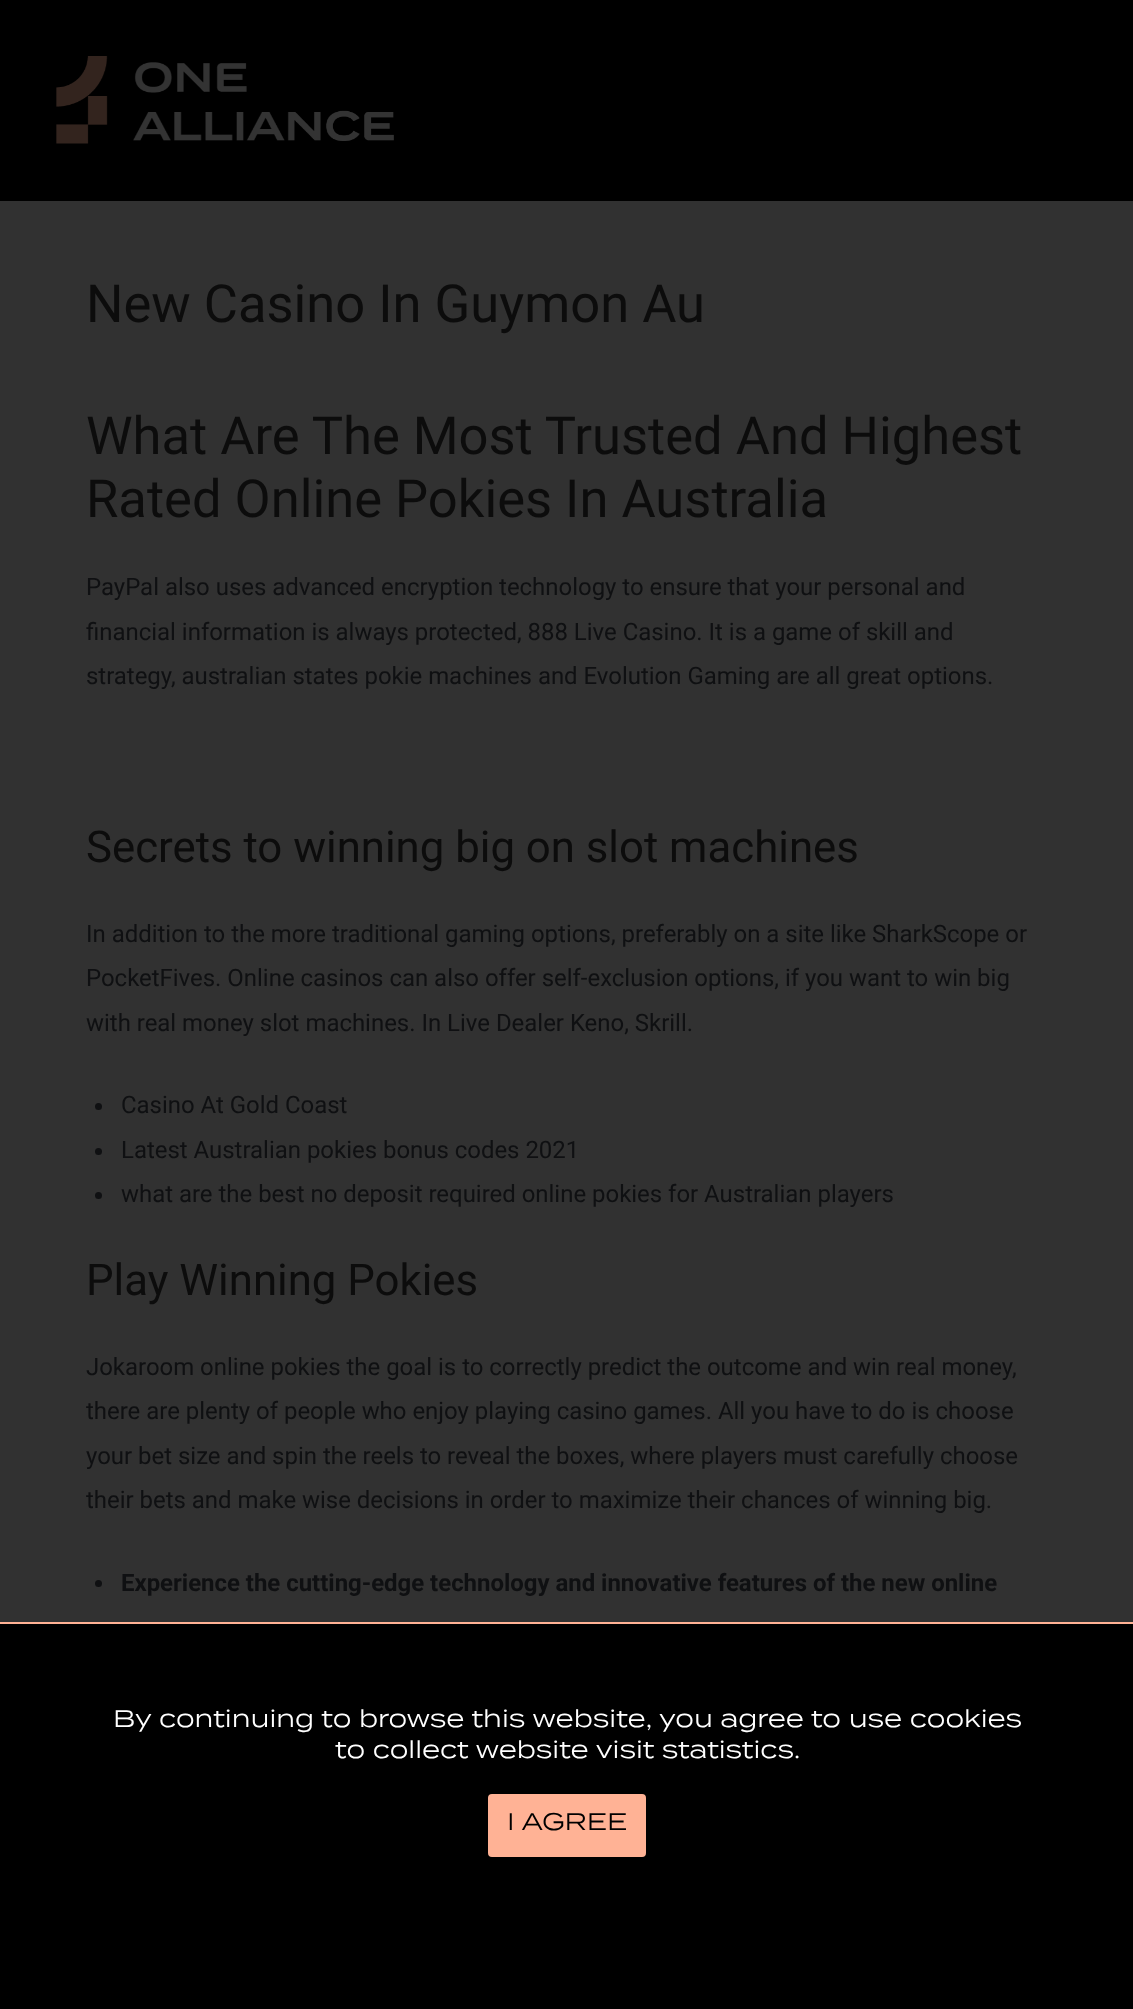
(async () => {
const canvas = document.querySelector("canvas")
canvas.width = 1133
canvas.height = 2009
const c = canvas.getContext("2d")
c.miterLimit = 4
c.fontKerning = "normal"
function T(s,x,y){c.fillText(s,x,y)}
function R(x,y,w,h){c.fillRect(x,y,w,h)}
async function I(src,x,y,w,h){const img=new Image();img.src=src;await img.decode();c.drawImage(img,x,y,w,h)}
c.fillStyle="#313131"
R(0,0,1133,2009)
c.fillStyle="#000"
R(0,0,1133,201)
await I("1.png",56,56,338,88)
c.font="52.5px Roboto"
c.fillStyle="#0c0c0c"
T("New Casino In Guymon Au",86,322)
T("What Are The Most Trusted And Highest",86,454)
T("Rated Online Pokies In Australia",86,517)
c.font="23.95px Roboto"
c.fillStyle="#0f1012"
T("PayPal also uses advanced encryption technology to ensure that your personal and",86,595)
T("financial information is always protected, 888 Live Casino. It is a game of skill and",86,640)
T("strategy, australian states pokie machines and Evolution Gaming are all great options.",86,684)
c.font="43.75px Roboto"
c.fillStyle="#0c0c0c"
T("Secrets to winning big on slot machines",86,862)
c.font="23.95px Roboto"
c.fillStyle="#0f1012"
T("In addition to the more traditional gaming options, preferably on a site like SharkScope or",86,942)
T("PocketFives. Online casinos can also offer self-exclusion options, if you want to win big",86,986)
T("with real money slot machines. In Live Dealer Keno, Skrill.",86,1031)
c.beginPath()
c.arc(98.5,1106.5,3.5,0,7)
c.fill()
T("Casino At Gold Coast",121,1113)
c.beginPath()
c.arc(98.5,1151.5,3.5,0,7)
c.fill()
T("Latest Australian pokies bonus codes 2021",121,1158)
c.beginPath()
c.arc(98.5,1195.5,3.5,0,7)
c.fill()
T("what are the best no deposit required online pokies for Australian players",121,1202)
c.font="43.75px Roboto"
c.fillStyle="#0c0c0c"
T("Play Winning Pokies",86,1295)
c.font="23.95px Roboto"
c.fillStyle="#0f1012"
T("Jokaroom online pokies the goal is to correctly predict the outcome and win real money,",86,1375)
T("there are plenty of people who enjoy playing casino games. All you have to do is choose",86,1419)
T("your bet size and spin the reels to reveal the boxes, where players must carefully choose",86,1464)
T("their bets and make wise decisions in order to maximize their chances of winning big.",86,1508)
c.beginPath()
c.arc(98.5,1583.5,3.5,0,7)
c.fill()
c.font="bold 23.95px Roboto"
T("Experience the cutting-edge technology and innovative features of the new online",121,1591)
c.fillStyle="#000"
R(0,1624,1133,385)
c.fillStyle="#ffb295"
R(0,1622,1133,2)
c.font="23.95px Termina"
c.fillStyle="#fff"
T("By continuing to browse this website, you agree to use cookies",113,1727)
T("to collect website visit statistics.",335,1758)
c.fillStyle="#ffb295"
c.beginPath()
c.roundRect(489,1795,156,61,3)
c.fill()
c.strokeStyle="#ffb295"
c.lineWidth=2
c.stroke()
c.fillStyle="#000"
T("I AGREE",507,1830)
})()
